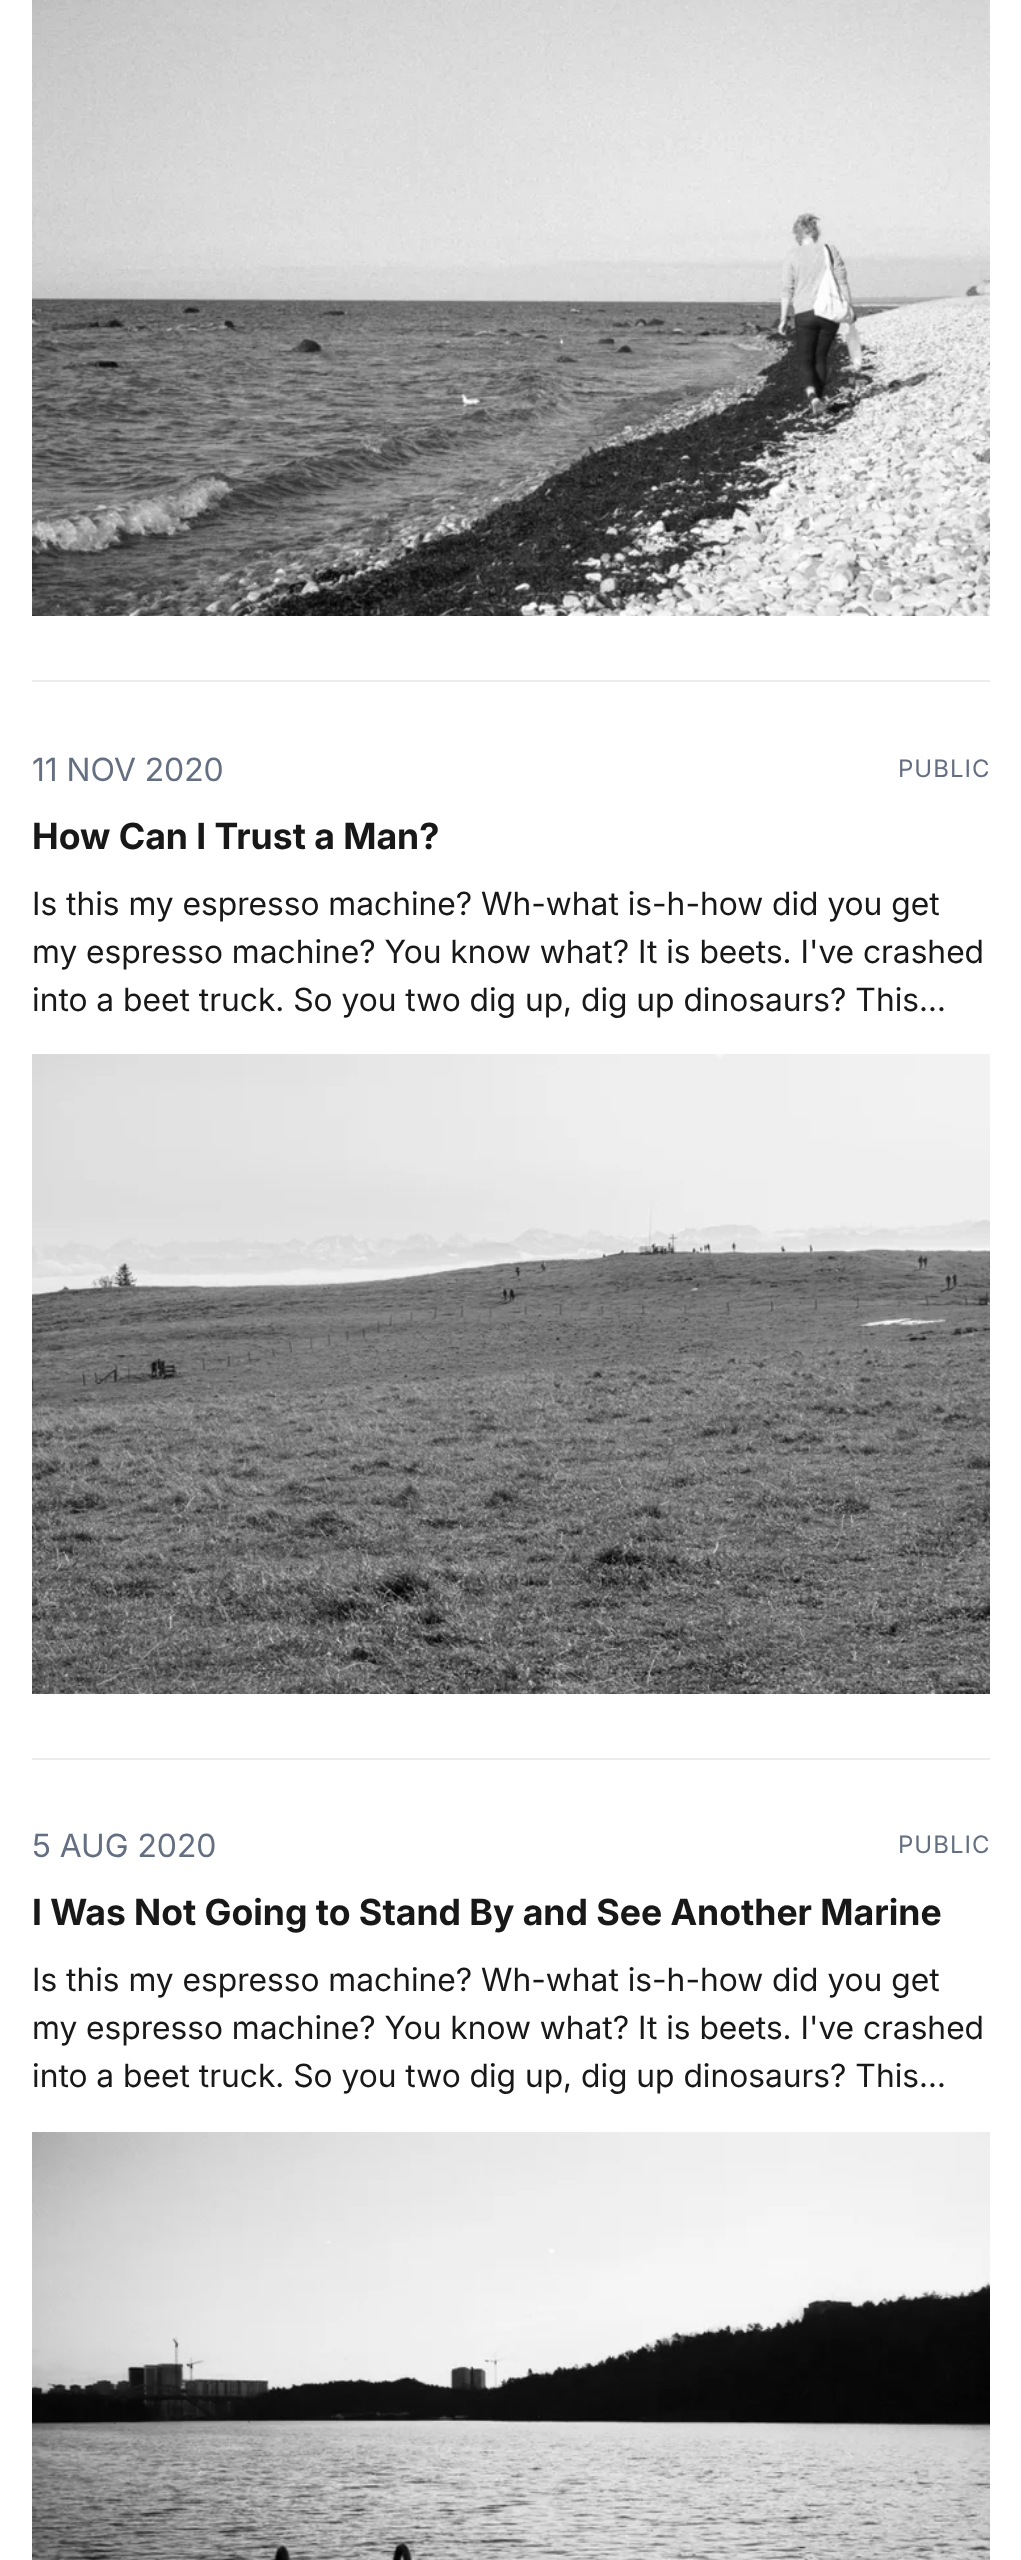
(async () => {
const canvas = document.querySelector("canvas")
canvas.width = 1021
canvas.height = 2560
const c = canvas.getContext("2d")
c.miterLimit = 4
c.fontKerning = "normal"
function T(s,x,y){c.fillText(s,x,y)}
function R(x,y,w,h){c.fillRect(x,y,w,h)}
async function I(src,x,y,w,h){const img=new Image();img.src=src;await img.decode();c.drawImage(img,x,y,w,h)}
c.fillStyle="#fff"
R(0,0,1021,2560)
await I("1.png",32,0,958,616)
c.fillStyle="#ececec"
R(32,680,958,2)
c.font="32px Inter"
c.fillStyle="#646f82"
T("11 NOV 2020",32,781)
c.letterSpacing="1px"
c.font="24px 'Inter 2'"
T("PUBLIC",898,777)
c.letterSpacing="0px"
c.font="bold 36px Inter"
c.fillStyle="#181818"
T("How Can I Trust a Man?",32,849)
c.font="32px Inter"
T("Is this my espresso machine? Wh-what is-h-how did you get",32,915)
T("my espresso machine? You know what? It is beets. I've crashed",32,963)
T("into a beet truck. So you two dig up, dig up dinosaurs? This…",32,1011)
await I("2.png",32,1054,958,640)
c.fillStyle="#ececec"
R(32,1758,958,2)
c.fillStyle="#646f82"
T("5 AUG 2020",32,1857)
c.letterSpacing="1px"
c.font="24px 'Inter 2'"
T("PUBLIC",898,1853)
c.letterSpacing="0px"
c.font="bold 36px Inter"
c.fillStyle="#181818"
T("I Was Not Going to Stand By and See Another Marine",32,1925)
c.font="32px Inter"
T("Is this my espresso machine? Wh-what is-h-how did you get",32,1991)
T("my espresso machine? You know what? It is beets. I've crashed",32,2039)
T("into a beet truck. So you two dig up, dig up dinosaurs? This…",32,2087)
await I("3.png",32,2132,958,428)
})()
